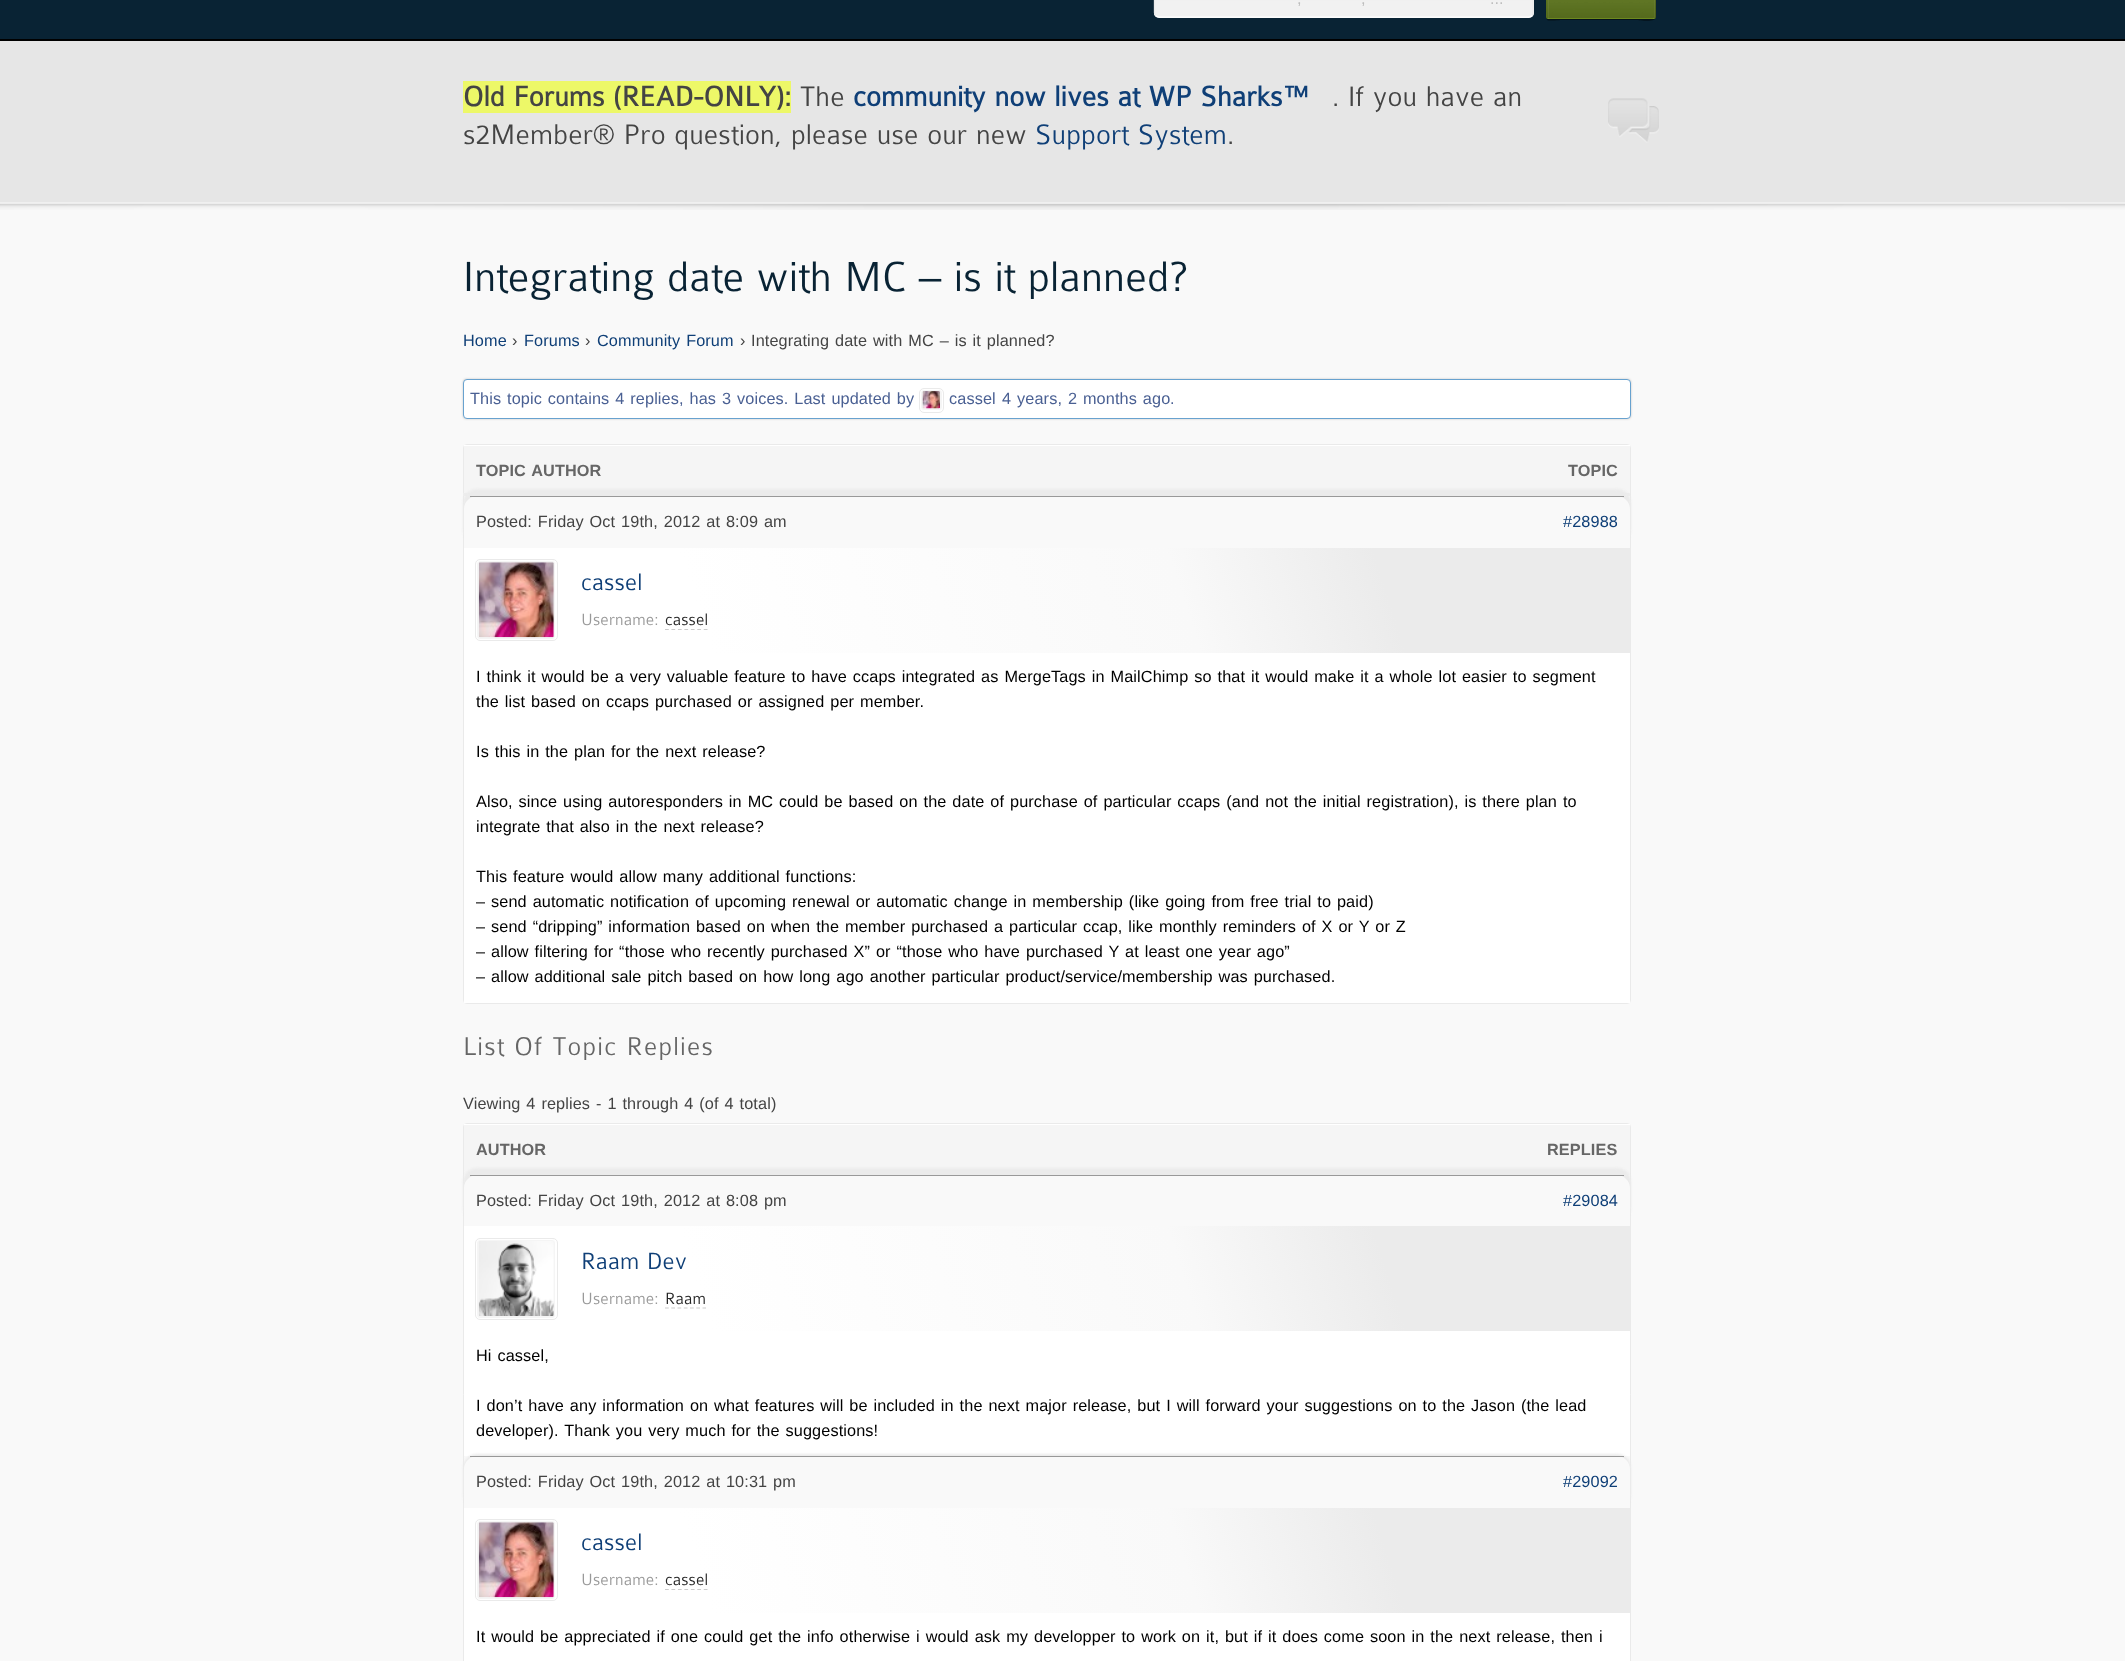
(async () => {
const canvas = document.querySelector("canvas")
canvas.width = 2125
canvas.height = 1661
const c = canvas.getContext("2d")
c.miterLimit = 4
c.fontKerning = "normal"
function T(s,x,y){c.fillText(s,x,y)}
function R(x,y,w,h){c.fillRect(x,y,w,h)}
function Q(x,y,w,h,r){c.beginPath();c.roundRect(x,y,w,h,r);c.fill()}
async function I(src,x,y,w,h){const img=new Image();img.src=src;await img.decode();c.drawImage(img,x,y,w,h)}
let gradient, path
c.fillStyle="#092334"
R(0,0,2125,1661)
c.fillStyle="#000"
R(0,39,2125,2)
c.fillStyle="#f9f9f9"
Q(1154,-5,380,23,5)
await I("1.png",1153,0,381,17)
path = new Path2D("M1532-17c.5 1 1 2 1 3v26.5c0 1-.5 2.5-1 3")
c.strokeStyle="#eaeaea"
c.lineWidth=1.2
c.stroke(path)
path = new Path2D("M1532 15.5c-1 1-2 1.5-3 1.5h-370c-1.5 0-2.5-.5-3.5-1.5")
c.strokeStyle="#fff"
c.stroke(path)
path = new Path2D("M1155.5 15.5c-.5-.5-1-2-1-3v-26c0-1.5 .5-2.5 1-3.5")
c.strokeStyle="#eaeaea"
c.stroke(path)
c.font="16.25px Liberation Sans"
c.fillStyle="#bdbdbd"
T(",",1297,4)
T(",",1361,4)
T("...",1490,4)
c.fillStyle="#05121a"
path = new Path2D("M1546-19v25c0 19-2 14 20 14h70c4 0 20 3 20-3c0 1-1 2-2 2h-105c-2 0-3-1-3-3z")
c.fill(path)
c.fillStyle="#74941f"
Q(1546,-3,110,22,2.5)
await I("2.png",1546,0,110,19)
c.fillStyle="#ffffff0d"
path = new Path2D("M1549-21h-1h104c1 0 2 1 2 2v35c0 1-1 2-1 3h1c0 0 1-1 1-3v-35c0-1-1-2-1-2z")
c.fill(path)
path = new Path2D("M1550-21h104h-88c-18 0-18-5-18 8v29c0 2 0 3 1 3v-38c0-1 0-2 1-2z")
c.fill(path)
c.fillStyle="#0000001f"
R(1655,0,1,18)
R(1546,0,1,18)
c.fillStyle="#e6e6e6"
R(0,41,2125,163)
await I("3.png",0,202,2125,2)
c.fillStyle="#edf868"
R(463,81,328,32)
c.letterSpacing="0.12px"
c.wordSpacing="1.25px"
c.font="bold 30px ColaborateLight"
c.fillStyle="#444"
T("Old Forums (READ-ONLY):",463,106)
c.wordSpacing="0px"
c.font="300 30px ColaborateLight"
T("The",800,106)
c.wordSpacing="1.25px"
c.font="bold 30px ColaborateLight"
c.fillStyle="#0f3f77"
T("community now lives at WP Sharks™",853,106)
c.font="300 30px ColaborateLight"
c.fillStyle="#444"
T(". If you have an",1332,106)
await I("4.png",1608,98,51,45)
T("s2Member® Pro question, please use our new",463,144)
c.fillStyle="#0f3f77"
T("Support System",1035,144)
c.wordSpacing="0px"
c.fillStyle="#444"
T(".",1227,144)
c.fillStyle="#f9f9f9"
R(0,204,2125,1457)
await I("5.png",0,204,2125,6)
c.wordSpacing="1.25px"
c.font="300 45px ColaborateLight"
c.fillStyle="#092334"
T("Integrating date with MC – is it planned?",463,291)
c.wordSpacing="0px"
c.font="16.25px Liberation Sans"
c.fillStyle="#0f3f77"
T("Home",463,346)
c.fillStyle="#444"
T("›",512,346)
c.fillStyle="#0f3f77"
T("Forums",524,346)
c.fillStyle="#444"
T("›",585,346)
c.wordSpacing="1.25px"
c.fillStyle="#0f3f77"
T("Community Forum",597,346)
c.wordSpacing="0px"
c.fillStyle="#444"
T("›",740,346)
c.wordSpacing="1.25px"
T("Integrating date with MC – is it planned?",751,346)
c.fillStyle="#00000033"
c.filter="blur(1px)"
c.beginPath()
c.roundRect(463,379,1168,40,4)
c.fill()
c.filter="none"
c.fillStyle="#fff"
c.beginPath()
c.roundRect(463.5,379.5,1167,39,3.5)
c.fill()
c.strokeStyle="#68a2cf"
c.lineWidth=1
c.stroke()
c.fillStyle="#f5f5f5"
c.beginPath()
c.roundRect(920.5,389.5,22,21,3.5)
c.fill()
c.strokeStyle="#fff"
c.stroke()
await I("6.png",922,391,18,18)
c.beginPath()
c.roundRect(919.5,388.5,24,24,4.5)
c.strokeStyle="#eaeaea"
c.stroke()
c.fillStyle="#4a6093"
T("This topic contains 4 replies, has 3 voices. Last updated by",470,404)
c.wordSpacing="0px"
T("cassel",949,404)
c.wordSpacing="1.25px"
T("4 years, 2 months ago",1002,404)
c.wordSpacing="0px"
T(".",1170,404)
c.beginPath()
c.roundRect(463.5,444.5,1167,559,3.5)
c.stroke()
c.fillStyle="#f5f5f5"
R(464,446,1166,47)
c.fillStyle="#eee"
R(463,493,8,3)
c.fillStyle="#fff"
R(464,445,1166,1)
c.wordSpacing="1.25px"
c.font="bold 16.25px Liberation Sans"
c.fillStyle="#666"
T("TOPIC AUTHOR",476,476)
c.fillStyle="#eee"
R(1623,493,7,3)
c.wordSpacing="0px"
c.fillStyle="#666"
T("TOPIC",1568,476)
c.save()
path = new Path2D("M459 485h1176v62h-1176zm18 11h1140c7 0 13 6 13 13v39h-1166v-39c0-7 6-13 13-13z")
c.clip(path,"evenodd")
c.fillStyle="#ebebeb"
c.filter="blur(1px)"
c.beginPath()
c.roundRect(463,489,1168,54,14)
c.fill()
c.filter="none"
c.restore()
c.fillStyle="#999"
R(470,496,1154,1)
c.wordSpacing="1.25px"
c.font="16.25px Liberation Sans"
c.fillStyle="#444"
T("Posted: Friday Oct 19th, 2012 at 8:09 am",476,527)
c.wordSpacing="0px"
c.fillStyle="#0f3f77"
T("#28988",1563,527)
gradient = c.createLinearGradient(464,923,1630,548)
gradient.addColorStop(.26,"#fff")
gradient.addColorStop(.64,"#f9f9f9")
gradient.addColorStop(.8,"#ebebeb")
c.fillStyle = gradient
R(464,548,1166,105)
c.fillStyle="#f5f5f5"
c.beginPath()
c.roundRect(476.5,560.5,79,79,3.5)
c.fill()
c.strokeStyle="#fff"
c.stroke()
await I("7.png",478,562,76,76)
c.beginPath()
c.roundRect(475.5,559.5,82,81,4.5)
c.strokeStyle="#eaeaea"
c.stroke()
c.font="300 25px ColaborateLight"
c.fillStyle="#0f3f77"
T("cassel",581,590)
c.font="300 17.5px ColaborateLight"
c.fillStyle="#999"
T("Username:",581,625)
c.fillStyle="#252525"
T("cassel",665,625)
path = new Path2D("M665 629.5h42.5")
c.strokeStyle="#ccc"
c.lineWidth=1.2
c.setLineDash([3.75,2.71])
c.stroke(path)
c.fillStyle="#fff"
R(464,653,1166,350)
c.wordSpacing="1.25px"
c.font="16.25px Liberation Sans"
c.fillStyle="#000"
T("I think it would be a very valuable feature to have ccaps integrated as MergeTags in MailChimp so that it would make it a whole lot easier to segment",476,682)
T("the list based on ccaps purchased or assigned per member.",476,707)
T("Is this in the plan for the next release?",476,757)
T("Also, since using autoresponders in MC could be based on the date of purchase of particular ccaps (and not the initial registration), is there plan to",476,807)
T("integrate that also in the next release?",476,832)
T("This feature would allow many additional functions:",476,882)
T("– send automatic notification of upcoming renewal or automatic change in membership (like going from free trial to paid)",476,907)
T("– send “dripping” information based on when the member purchased a particular ccap, like monthly reminders of X or Y or Z",476,932)
T("– allow filtering for “those who recently purchased X” or “those who have purchased Y at least one year ago”",476,957)
T("– allow additional sale pitch based on how long ago another particular product/service/membership was purchased.",476,982)
c.letterSpacing="1.25px"
c.font="300 27.5px ColaborateLight"
c.fillStyle="#666"
T("List Of Topic Replies",463,1055)
c.letterSpacing="0.12px"
c.font="16.25px Liberation Sans"
c.fillStyle="#444"
T("Viewing 4 replies - 1 through 4 (of 4 total)",463,1109)
c.beginPath()
c.roundRect(463.5,1123.5,1167,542,3.5)
c.strokeStyle="#eaeaea"
c.lineWidth=1
c.setLineDash([])
c.stroke()
c.fillStyle="#f5f5f5"
R(464,1125,1166,50)
c.fillStyle="#fff"
R(464,1124,1166,1)
c.wordSpacing="0px"
c.font="bold 16.25px Liberation Sans"
c.fillStyle="#666"
T("AUTHOR",476,1155)
T("REPLIES",1547,1155)
c.save()
path = new Path2D("M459 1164h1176v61h-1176zm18 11h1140c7 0 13 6 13 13v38h-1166v-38c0-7 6-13 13-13z")
c.clip(path,"evenodd")
c.fillStyle="#ebebeb"
c.filter="blur(1px)"
c.beginPath()
c.roundRect(463,1168,1168,53,14)
c.fill()
c.filter="none"
c.restore()
c.fillStyle="#999"
R(470,1175,1154,1)
c.wordSpacing="1.25px"
c.font="16.25px Liberation Sans"
c.fillStyle="#444"
T("Posted: Friday Oct 19th, 2012 at 8:08 pm",476,1206)
c.wordSpacing="0px"
c.fillStyle="#0f3f77"
T("#29084",1563,1206)
gradient = c.createLinearGradient(464,1601,1630,1226)
gradient.addColorStop(.26,"#fff")
gradient.addColorStop(.64,"#f9f9f9")
gradient.addColorStop(.8,"#ebebeb")
c.fillStyle = gradient
R(464,1226,1166,105)
c.fillStyle="#f5f5f5"
c.beginPath()
c.roundRect(476.5,1239.5,79,79,3.5)
c.fill()
c.strokeStyle="#fff"
c.stroke()
await I("8.png",478,1241,76,75)
c.beginPath()
c.roundRect(475.5,1238.5,82,81,4.5)
c.strokeStyle="#eaeaea"
c.stroke()
c.wordSpacing="1.25px"
c.font="300 25px ColaborateLight"
c.fillStyle="#0f3f77"
T("Raam Dev",581,1269)
c.wordSpacing="0px"
c.font="300 17.5px ColaborateLight"
c.fillStyle="#999"
T("Username:",581,1304)
c.fillStyle="#252525"
T("Raam",665,1304)
path = new Path2D("M665 1308h41")
c.strokeStyle="#ccc"
c.lineWidth=1.2
c.setLineDash([3.75,2.5])
c.stroke(path)
c.fillStyle="#fff"
R(464,1331,1166,125)
c.wordSpacing="1.25px"
c.font="16.25px Liberation Sans"
c.fillStyle="#000"
T("Hi cassel,",476,1361)
T("I don’t have any information on what features will be included in the next major release, but I will forward your suggestions on to the Jason (the lead",476,1411)
T("developer). Thank you very much for the suggestions!",476,1436)
c.save()
path = new Path2D("M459 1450h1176v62h-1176zm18 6h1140c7 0 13 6 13 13v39h-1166v-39c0-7 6-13 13-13z")
c.clip(path,"evenodd")
c.fillStyle="#ebebeb"
c.filter="blur(1px)"
c.beginPath()
c.roundRect(463,1454,1168,54,14)
c.fill()
c.filter="none"
c.restore()
c.fillStyle="#999"
R(470,1456,1154,1)
c.fillStyle="#444"
T("Posted: Friday Oct 19th, 2012 at 10:31 pm",476,1487)
c.wordSpacing="0px"
c.fillStyle="#0f3f77"
T("#29092",1563,1487)
gradient = c.createLinearGradient(464,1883,1630,1508)
gradient.addColorStop(.26,"#fff")
gradient.addColorStop(.64,"#f9f9f9")
gradient.addColorStop(.8,"#ebebeb")
c.fillStyle = gradient
R(464,1508,1166,105)
c.fillStyle="#f5f5f5"
c.beginPath()
c.roundRect(476.5,1520.5,79,79,3.5)
c.fill()
c.strokeStyle="#fff"
c.lineWidth=1
c.setLineDash([])
c.stroke()
await I("7.png",478,1522,76,76)
c.beginPath()
c.roundRect(475.5,1519.5,82,81,4.5)
c.strokeStyle="#eaeaea"
c.stroke()
c.font="300 25px ColaborateLight"
c.fillStyle="#0f3f77"
T("cassel",581,1550)
c.font="300 17.5px ColaborateLight"
c.fillStyle="#999"
T("Username:",581,1585)
c.fillStyle="#252525"
T("cassel",665,1585)
path = new Path2D("M665 1589.5h42.5")
c.strokeStyle="#ccc"
c.lineWidth=1.2
c.setLineDash([3.75,2.71])
c.stroke(path)
c.fillStyle="#fff"
R(464,1613,1166,48)
c.wordSpacing="1.25px"
c.font="16.25px Liberation Sans"
c.fillStyle="#000"
T("It would be appreciated if one could get the info otherwise i would ask my developper to work on it, but if it does come soon in the next release, then i",476,1642)
})()
